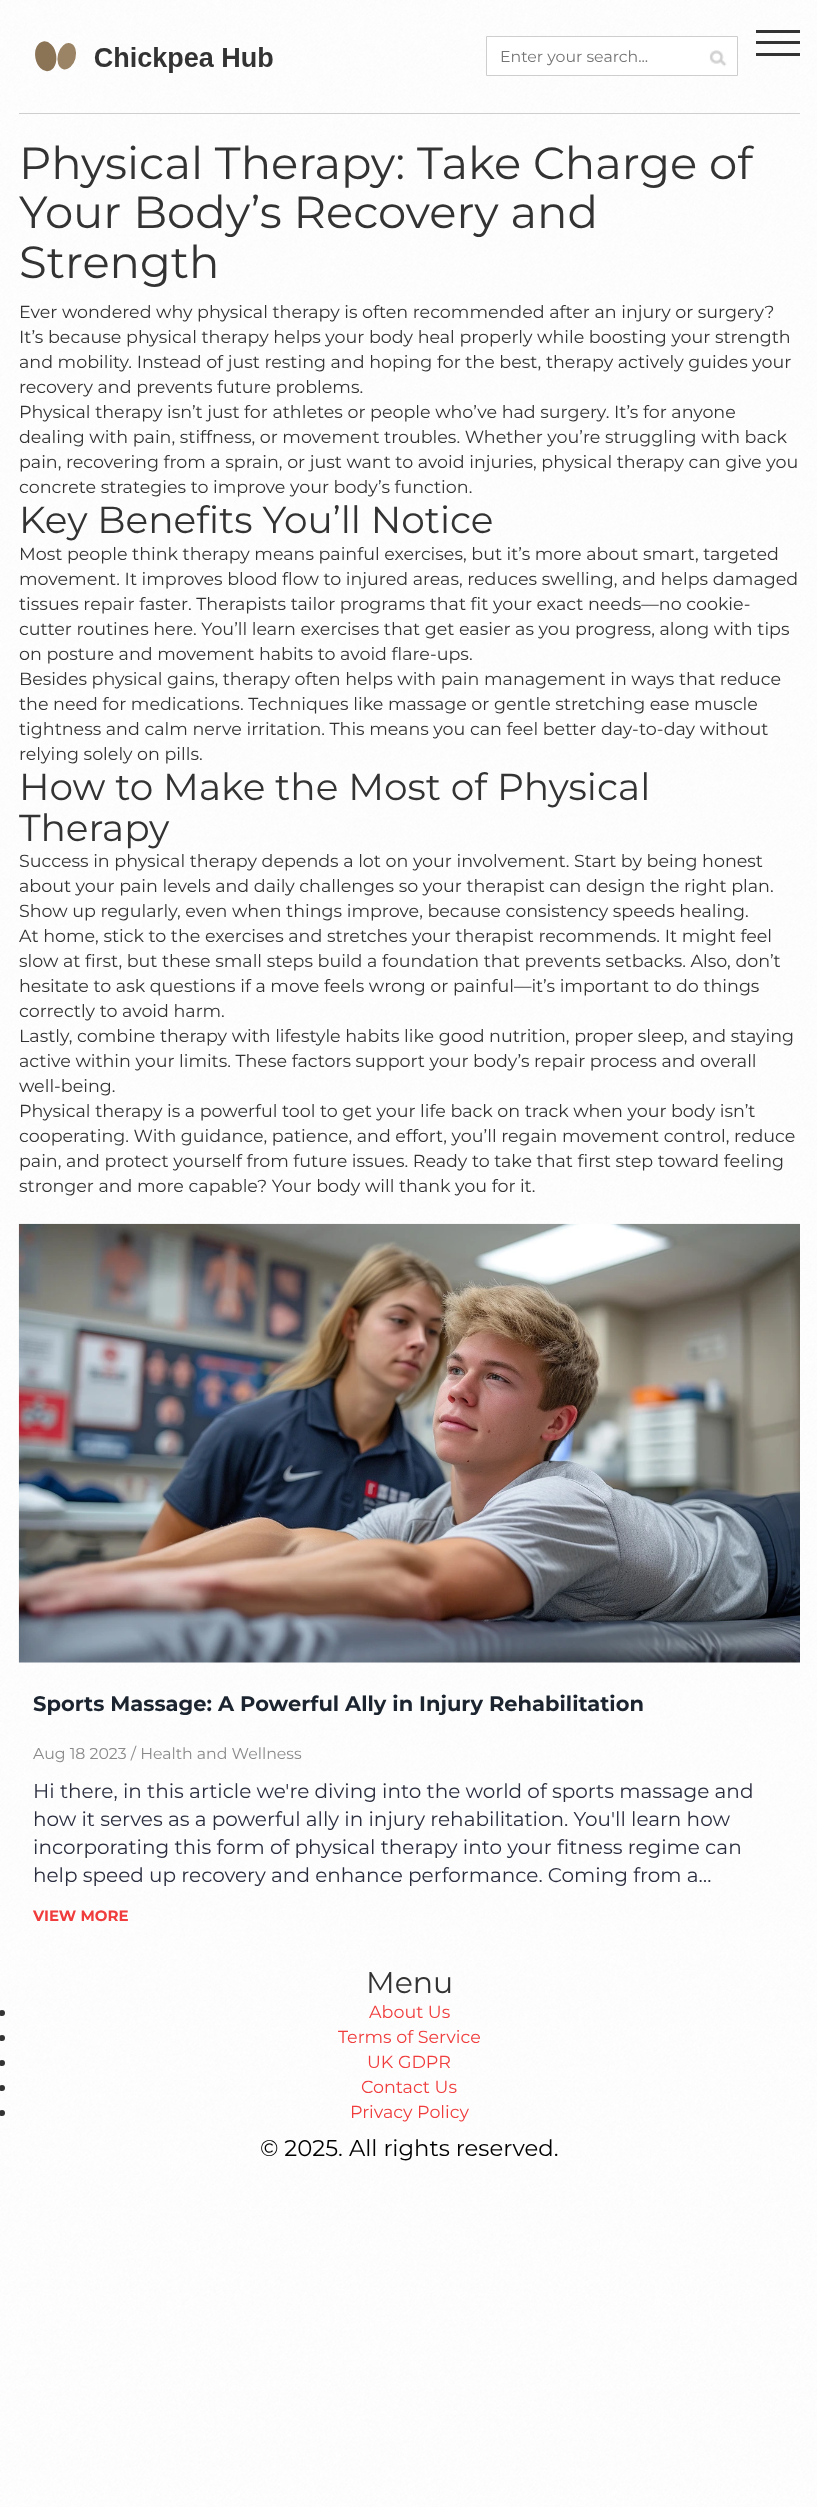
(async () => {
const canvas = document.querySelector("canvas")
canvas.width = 818
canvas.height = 2510
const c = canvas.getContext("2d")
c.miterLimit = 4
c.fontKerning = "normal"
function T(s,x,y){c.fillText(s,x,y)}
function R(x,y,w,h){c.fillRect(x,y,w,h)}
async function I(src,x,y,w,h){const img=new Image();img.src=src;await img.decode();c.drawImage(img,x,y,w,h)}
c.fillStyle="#fff"
R(0,0,818,2510)
await I("1.png",0,0,817,2507)
c.fillStyle="#333"
R(756,30,44,3)
R(756,41,44,3)
R(756,53,44,3)
c.fillStyle="#cecece"
R(19,113,781,1)
await I("2.png",35,41,238,32)
c.fillStyle="#fff"
c.beginPath()
c.rect(486.5,36.5,251,39)
c.fill()
c.strokeStyle="#cecece"
c.stroke()
c.font="15.75px Montserrat"
c.fillStyle="#757575"
T("Enter your search...",500,62)
await I("3.png",709,50,18,17)
c.font="45px Montserrat"
c.fillStyle="#333"
T("Physical Therapy: Take Charge of",19,179)
T("Your Body’s Recovery and",19,228)
T("Strength",19,278)
c.font="17.5px Montserrat"
T("Ever wondered why physical therapy is often recommended after an injury or surgery?",19,318)
T("It’s because physical therapy helps your body heal properly while boosting your strength",19,343)
T("and mobility. Instead of just resting and hoping for the best, therapy actively guides your",19,368)
T("recovery and prevents future problems.",19,393)
T("Physical therapy isn’t just for athletes or people who’ve had surgery. It’s for anyone",19,418)
T("dealing with pain, stiffness, or movement troubles. Whether you’re struggling with back",19,443)
T("pain, recovering from a sprain, or just want to avoid injuries, physical therapy can give you",19,468)
T("concrete strategies to improve your body’s function.",19,493)
c.font="37.5px Montserrat"
T("Key Benefits You’ll Notice",19,533)
c.font="17.5px Montserrat"
T("Most people think therapy means painful exercises, but it’s more about smart, targeted",19,560)
T("movement. It improves blood flow to injured areas, reduces swelling, and helps damaged",19,585)
T("tissues repair faster. Therapists tailor programs that fit your exact needs—no cookie-",19,610)
T("cutter routines here. You’ll learn exercises that get easier as you progress, along with tips",19,635)
T("on posture and movement habits to avoid flare-ups.",19,660)
T("Besides physical gains, therapy often helps with pain management in ways that reduce",19,685)
T("the need for medications. Techniques like massage or gentle stretching ease muscle",19,710)
T("tightness and calm nerve irritation. This means you can feel better day-to-day without",19,735)
T("relying solely on pills.",19,760)
c.font="37.5px Montserrat"
T("How to Make the Most of Physical",19,800)
T("Therapy",19,841)
c.font="17.5px Montserrat"
T("Success in physical therapy depends a lot on your involvement. Start by being honest",19,867)
T("about your pain levels and daily challenges so your therapist can design the right plan.",19,892)
T("Show up regularly, even when things improve, because consistency speeds healing.",19,917)
T("At home, stick to the exercises and stretches your therapist recommends. It might feel",19,942)
T("slow at first, but these small steps build a foundation that prevents setbacks. Also, don’t",19,967)
T("hesitate to ask questions if a move feels wrong or painful—it’s important to do things",19,992)
T("correctly to avoid harm.",19,1017)
T("Lastly, combine therapy with lifestyle habits like good nutrition, proper sleep, and staying",19,1042)
T("active within your limits. These factors support your body’s repair process and overall",19,1067)
T("well-being.",19,1092)
T("Physical therapy is a powerful tool to get your life back on track when your body isn’t",19,1117)
T("cooperating. With guidance, patience, and effort, you’ll regain movement control, reduce",19,1142)
T("pain, and protect yourself from future issues. Ready to take that first step toward feeling",19,1167)
T("stronger and more capable? Your body will thank you for it.",19,1192)
await I("4.png",18,1223,782,440)
c.save()
c.beginPath()
c.rect(33,1693,610,22)
c.clip()
c.font="bold 21px Montserrat"
c.fillStyle="#1b242f"
T("Sports Massage: A Powerful Ally in Injury Rehabilitation",33,1711)
c.restore()
c.font="15.75px Montserrat"
c.fillStyle="#8a8a8a"
T("Aug 18 2023 / Health and Wellness",33,1759)
c.font="20px Montserrat"
c.fillStyle="#2b2e3f"
T("Hi there, in this article we're diving into the world of sports massage and",33,1798)
T("how it serves as a powerful ally in injury rehabilitation. You'll learn how",33,1826)
T("incorporating this form of physical therapy into your fitness regime can",33,1854)
T("help speed up recovery and enhance performance. Coming from a…",33,1882)
c.font="bold 15px Montserrat"
c.fillStyle="#f03c3c"
T("VIEW MORE",33,1921)
c.font="30px Montserrat"
c.fillStyle="#333"
T("Menu",366,1993)
c.beginPath()
c.arc(2,2013,3,0,7)
c.fill()
c.font="17.5px Montserrat"
c.fillStyle="#f03c3c"
T("About Us",369,2018)
c.fillStyle="#333"
c.beginPath()
c.arc(2,2038,3,0,7)
c.fill()
c.fillStyle="#f03c3c"
T("Terms of Service",338,2043)
c.fillStyle="#333"
c.beginPath()
c.arc(2,2063,3,0,7)
c.fill()
c.fillStyle="#f03c3c"
T("UK GDPR",367,2068)
c.fillStyle="#333"
c.beginPath()
c.arc(2,2088,3,0,7)
c.fill()
c.fillStyle="#f03c3c"
T("Contact Us",361,2093)
c.fillStyle="#333"
c.beginPath()
c.arc(2,2113,3,0,7)
c.fill()
c.fillStyle="#f03c3c"
T("Privacy Policy",350,2118)
c.font="22.75px Montserrat"
c.fillStyle="#000"
T("© 2025. All rights reserved.",260,2156)
})()
